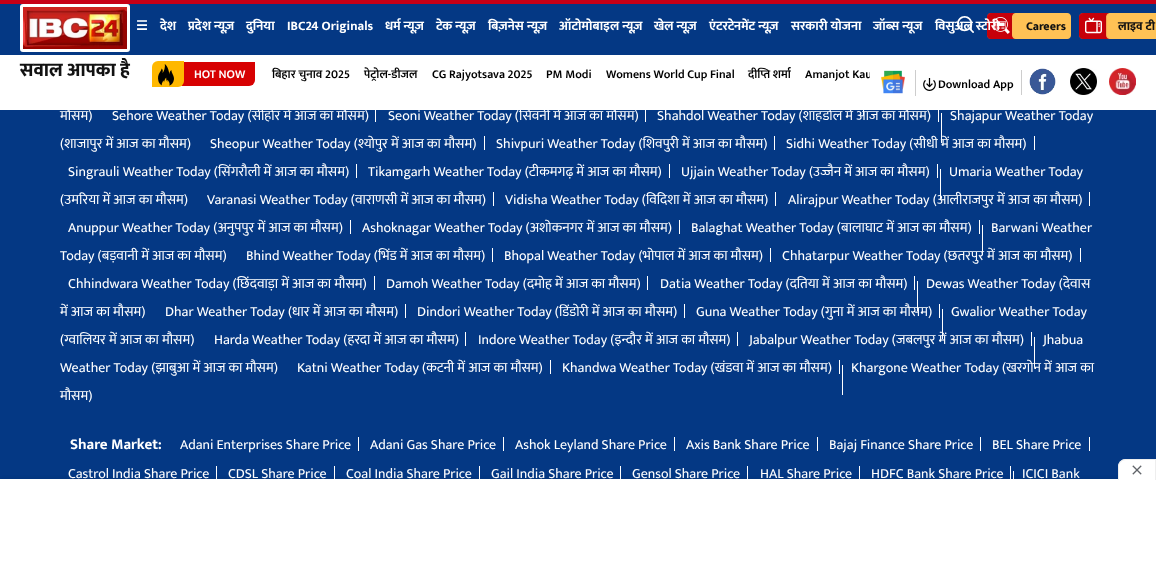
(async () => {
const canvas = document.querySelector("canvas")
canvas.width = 1156
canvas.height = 569
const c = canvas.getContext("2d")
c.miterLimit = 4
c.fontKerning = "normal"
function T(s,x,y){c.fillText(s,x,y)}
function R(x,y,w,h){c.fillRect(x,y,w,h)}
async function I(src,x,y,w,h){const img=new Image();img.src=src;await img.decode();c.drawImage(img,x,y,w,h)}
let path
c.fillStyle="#043884"
R(0,0,1156,569)
c.fillStyle="#c70016"
R(0,0,1156,4)
c.font="bold 13px DejaVu Sans"
c.fillStyle="#fff"
T("☰",136,30)
c.font="bold 13px Mukta"
T("देश",160,30)
T("प्रदेश न्यूज़",188,30)
T("दुनिया",246,30)
T("IBC24 Originals",287,30)
T("धर्म न्यूज़",385,30)
T("टेक न्यूज़",436,30)
T("बिज़नेस न्यूज़",488,30)
T("ऑटोमोबाइल न्यूज़",559,30)
T("खेल न्यूज़",654,30)
T("एंटरटेनमेंट न्यूज़",709,30)
T("सरकारी योजना",791,30)
T("जॉब्स न्यूज",873,30)
await I("1.png",957,16,17,17)
await I("2.png",987,13,84,26)
await I("3.png",993,17,17,17)
T("विसुअल स्टोरी",935,30)
c.font="800 12px Mukta"
c.fillStyle="#121212"
T("Careers",1026,30)
await I("4.png",1079,13,77,26)
await I("5.png",1085,17,17,17)
T("लाइव टी",1118,30)
c.beginPath()
c.roundRect(21.5,5.5,107,45,1.5)
c.strokeStyle="#fff"
c.lineWidth=3
c.stroke()
await I("6.png",23,7,104,42)
c.fillStyle="#fff"
R(375,108,1,14)
R(645,108,1,14)
R(938,108,1,14)
R(0,55,1156,55)
c.font="800 19px Mukta"
c.fillStyle="#121212"
T("सवाल आपका है",20,76)
c.fillStyle="#d70102"
c.beginPath()
c.roundRect(152,62,103,24,[10,0,6,0])
c.fill()
c.fillStyle="#ffb800"
c.beginPath()
c.roundRect(152,61,32,26,[6,0,6,0])
c.fill()
await I("7.png",158,64,16,22)
c.font="600 12px Mukta"
c.fillStyle="#fff"
T("HOT NOW",194,78)
c.fillStyle="#000"
T("बिहार चुनाव 2025",272,78)
T("पेट्रोल-डीजल",364,78)
T("CG Rajyotsava 2025",432,78)
T("PM Modi",546,78)
T("Womens World Cup Final",606,78)
T("दीप्ति शर्मा",748,78)
c.save()
c.beginPath()
c.rect(265,61,605,29)
c.clip()
T("Amanjot Kau",805,78)
c.restore()
c.fillStyle="#cdcdcd"
R(915,70,1,26)
await I("8.png",881,70,24,24)
R(1021,70,1,25)
await I("9.png",923,78,13,13)
c.fillStyle="#000"
T("Download App",938,88)
await I("10.png",1029,68,27,27)
await I("11.png",1070,68,27,27)
await I("12.png",1109,68,27,27)
c.font="14px Mukta"
c.fillStyle="#fff"
T("मौसम)",60,120)
R(863,110,1,5)
T("Sehore Weather Today (सीहोर में आज का मौसम)",112,120)
T("Seoni Weather Today (सिवनी में आज का मौसम)",388,120)
T("Shahdol Weather Today (शाहडोल में आज का मौसम)",657,120)
T("(शाजापुर में आज का मौसम)",60,148)
R(941,113,1,30)
T("Shajapur Weather Today",950,120)
T("Sheopur Weather Today (श्योपुर में आज का मौसम)",210,148)
R(484,136,1,14)
T("Shivpuri Weather Today (शिवपुरी में आज का मौसम)",496,148)
R(774,136,1,14)
T("Sidhi Weather Today (सीधी में आज का मौसम)",786,148)
R(1034,136,1,14)
T("Singrauli Weather Today (सिंगरौली में आज का मौसम)",68,176)
R(356,164,1,14)
T("Tikamgarh Weather Today (टीकमगढ़ में आज का मौसम)",368,176)
R(669,164,1,14)
T("Ujjain Weather Today (उज्जैन में आज का मौसम)",681,176)
R(937,164,1,14)
T("(उमरिया में आज का मौसम)",60,204)
R(940,169,1,30)
T("Umaria Weather Today",949,176)
T("Varanasi Weather Today (वाराणसी में आज का मौसम)",207,204)
R(493,192,1,14)
T("Vidisha Weather Today (विदिशा में आज का मौसम)",505,204)
R(775,192,1,14)
T("Alirajpur Weather Today (आलीराजपुर में आज का मौसम)",788,204)
R(1089,192,1,14)
T("Anuppur Weather Today (अनुपपुर में आज का मौसम)",68,232)
R(350,220,1,14)
T("Ashoknagar Weather Today (अशोकनगर में आज का मौसम)",362,232)
R(679,220,1,14)
T("Balaghat Weather Today (बालाघाट में आज का मौसम)",691,232)
R(979,220,1,14)
T("Today (बड़वानी में आज का मौसम)",60,260)
R(982,225,1,30)
T("Barwani Weather",991,232)
T("Bhind Weather Today (भिंड में आज का मौसम)",246,260)
R(492,248,1,14)
T("Bhopal Weather Today (भोपाल में आज का मौसम)",504,260)
R(770,248,1,14)
T("Chhatarpur Weather Today (छतरपुर में आज का मौसम)",782,260)
R(1080,248,1,14)
T("में आज का मौसम)",60,316)
R(917,281,1,30)
T("Dewas Weather Today (देवास",926,288)
T("Chhindwara Weather Today (छिंदवाड़ा में आज का मौसम)",68,288)
R(374,276,1,14)
T("Damoh Weather Today (दमोह में आज का मौसम)",386,288)
R(647,276,1,14)
T("Datia Weather Today (दतिया में आज का मौसम)",660,288)
R(914,276,1,14)
T("Dhar Weather Today (धार में आज का मौसम)",165,316)
R(405,304,1,14)
T("Dindori Weather Today (डिंडोरी में आज का मौसम)",417,316)
R(684,304,1,14)
T("Guna Weather Today (गुना में आज का मौसम)",696,316)
R(939,304,1,14)
T("(ग्वालियर में आज का मौसम)",60,344)
R(942,309,1,30)
T("Gwalior Weather Today",951,316)
T("Harda Weather Today (हरदा में आज का मौसम)",214,344)
R(465,332,1,14)
T("Indore Weather Today (इन्दौर में आज का मौसम)",478,344)
R(737,332,1,14)
T("Jabalpur Weather Today (जबलपुर में आज का मौसम)",749,344)
R(1031,332,1,14)
T("Weather Today (झाबुआ में आज का मौसम)",60,372)
R(1034,337,1,30)
T("Jhabua",1043,344)
T("मौसम)",60,400)
R(842,365,1,30)
T("Khargone Weather Today (खरगोन में आज का",851,372)
T("Katni Weather Today (कटनी में आज का मौसम)",297,372)
R(550,360,1,14)
T("Khandwa Weather Today (खंडवा में आज का मौसम)",562,372)
R(839,360,1,14)
c.font="bold 15px Mukta"
T("Share Market:",70,449)
c.font="14px Mukta"
T("Adani Enterprises Share Price",180,449)
R(358,437,1,14)
T("Adani Gas Share Price",370,449)
R(503,437,1,14)
T("Ashok Leyland Share Price",515,449)
R(674,437,1,14)
T("Axis Bank Share Price",686,449)
R(817,437,1,14)
T("Bajaj Finance Share Price",829,449)
R(980,437,1,14)
T("BEL Share Price",992,449)
R(1089,437,1,14)
T("Castrol India Share Price",68,478)
R(216,466,1,14)
T("CDSL Share Price",228,478)
R(334,466,1,14)
T("Coal India Share Price",346,478)
R(479,466,1,14)
T("Gail India Share Price",491,478)
R(620,466,1,14)
T("Gensol Share Price",632,478)
R(747,466,1,14)
T("HAL Share Price",760,478)
R(859,466,1,14)
T("HDFC Bank Share Price",871,478)
R(1010,466,1,14)
R(1013,471,1,8)
T("ICICI Bank",1022,478)
c.fillStyle="#0000004d"
c.filter="blur(2.5px)"
c.beginPath()
c.rect(0,481,1156,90)
c.fill()
c.filter="none"
c.fillStyle="#fff"
R(0,479,1156,90)
c.beginPath()
c.roundRect(1118,459,38,21,[8,0,0,0])
c.fill()
c.fillStyle="#eee"
path = new Path2D("M1126 459h30v21h-38v-13c0-4.5 3.5-8 8-8zm0 1h29v20h-36v-13c0-4 3-7 7-7z")
c.fill(path,"evenodd")
await I("13.png",1132,465,10,10)
})()
